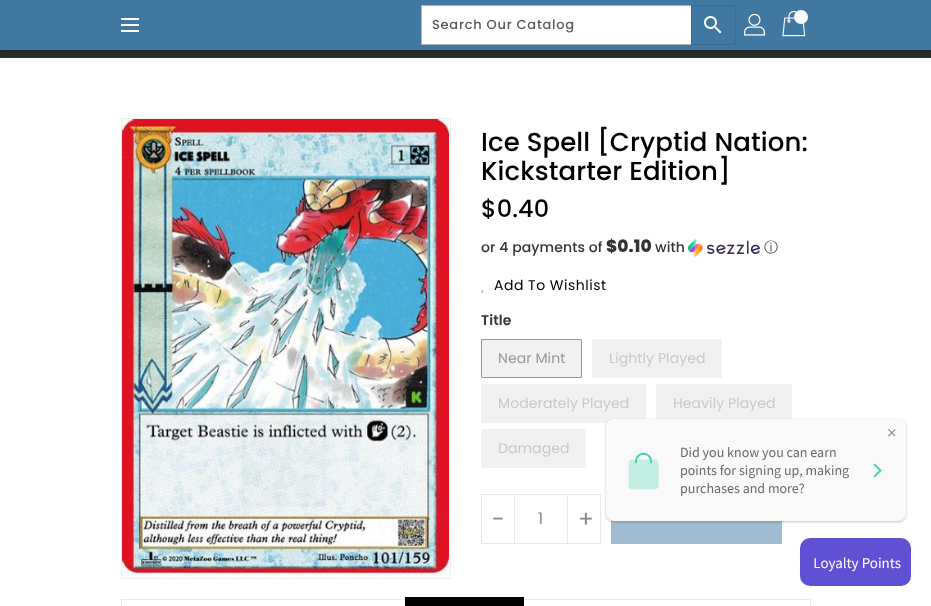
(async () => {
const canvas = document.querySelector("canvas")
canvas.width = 931
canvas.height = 606
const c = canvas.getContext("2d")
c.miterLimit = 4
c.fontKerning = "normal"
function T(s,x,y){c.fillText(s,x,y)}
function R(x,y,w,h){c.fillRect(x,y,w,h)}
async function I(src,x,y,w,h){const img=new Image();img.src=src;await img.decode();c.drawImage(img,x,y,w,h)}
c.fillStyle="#fff"
R(0,0,931,606)
c.fillStyle="#27302f"
R(0,50,931,8)
c.fillStyle="#0000001a"
c.filter="blur(2.5px)"
c.beginPath()
c.rect(-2,-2,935,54)
c.fill()
c.filter="none"
c.fillStyle="#4178a1"
R(0,0,931,50)
c.fillStyle="#fff"
R(121,18,18,2)
R(121,24,18,2)
R(121,30,18,2)
R(422,6,269,38)
c.strokeStyle="#b3b3b3"
c.strokeRect(421.5,5.5,314,39)
c.letterSpacing="0.75px"
c.font="500 13px Poppins"
c.fillStyle="#595959"
T("Search Our Catalog",432,29)
c.strokeStyle="#3b6c91"
c.strokeRect(691.5,5.5,44,39)
await I("1.png",704,16,18,18)
await I("2.png",744,14,21,22)
await I("3.png",782,11,24,26)
c.fillStyle="#fff"
c.beginPath()
c.arc(801,17,7,0,7)
c.fill()
c.strokeStyle="#eee"
c.strokeRect(121.5,118.5,329,460)
await I("4.png",122,119,327,459)
c.letterSpacing="0.1px"
c.font="500 26px Poppins"
c.fillStyle="#000"
T("Ice Spell [Cryptid Nation:",481,151)
T("Kickstarter Edition]",481,180)
c.font="500 24px Poppins"
T("$0.40",481,217)
c.font="500 14px Poppins"
c.fillStyle="#333"
T("or 4 payments of",481,252)
c.font="800 17px Poppins"
T("$0.10",606,252)
c.font="500 14px Poppins"
T("with",655,252)
await I("5.png",688,239,72,18)
c.font="500 14px WenQuanYi Zen Hei"
T("ⓘ",764,252)
c.letterSpacing="0.5px"
c.font="14px Poppins"
c.fillStyle="#000"
T("Add To Wishlist",494,290)
await I("6.png",481,290,2,3)
c.letterSpacing="0.1px"
c.font="600 14px Poppins"
c.fillStyle="#333"
T("Title",481,325)
c.fillStyle="#f1f1f1"
c.beginPath()
c.rect(481.5,339.5,100,38)
c.fill()
c.strokeStyle="#999"
c.stroke()
c.font="14px Poppins"
c.fillStyle="#999"
T("Near Mint",498,363)
c.fillStyle="#f1f1f1"
R(592,339,130,39)
c.fillStyle="#c9c9c9"
T("Lightly Played",609,363)
c.fillStyle="#f1f1f1"
R(481,384,165,39)
c.fillStyle="#c9c9c9"
T("Moderately Played",498,408)
c.fillStyle="#f1f1f1"
R(656,384,136,35)
c.fillStyle="#c9c9c9"
T("Heavily Played",673,408)
c.fillStyle="#f1f1f1"
R(481,429,105,39)
c.fillStyle="#c9c9c9"
T("Damaged",498,453)
c.strokeStyle="#e9e9e9"
c.strokeRect(481.5,494.5,33,49)
c.letterSpacing="0.5px"
c.font="23px Poppins"
c.fillStyle="#888"
T("-",492,527)
c.fillStyle="#e9e9e9"
R(515,494,52,1)
R(515,543,52,1)
c.letterSpacing="0.1px"
c.font="16px Poppins"
c.fillStyle="#888"
T("1",538,524)
c.strokeRect(567.5,494.5,33,49)
c.letterSpacing="0.5px"
c.font="23px Poppins"
T("+",578,527)
c.fillStyle="#a0bcd0"
R(611,520,171,24)
c.strokeRect(121.5,599.5,689,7)
c.fillStyle="#000"
R(405,597,119,9)
await I("7.png",604,418,304,106)
await I("8.png",800,538,111,48)
})()
